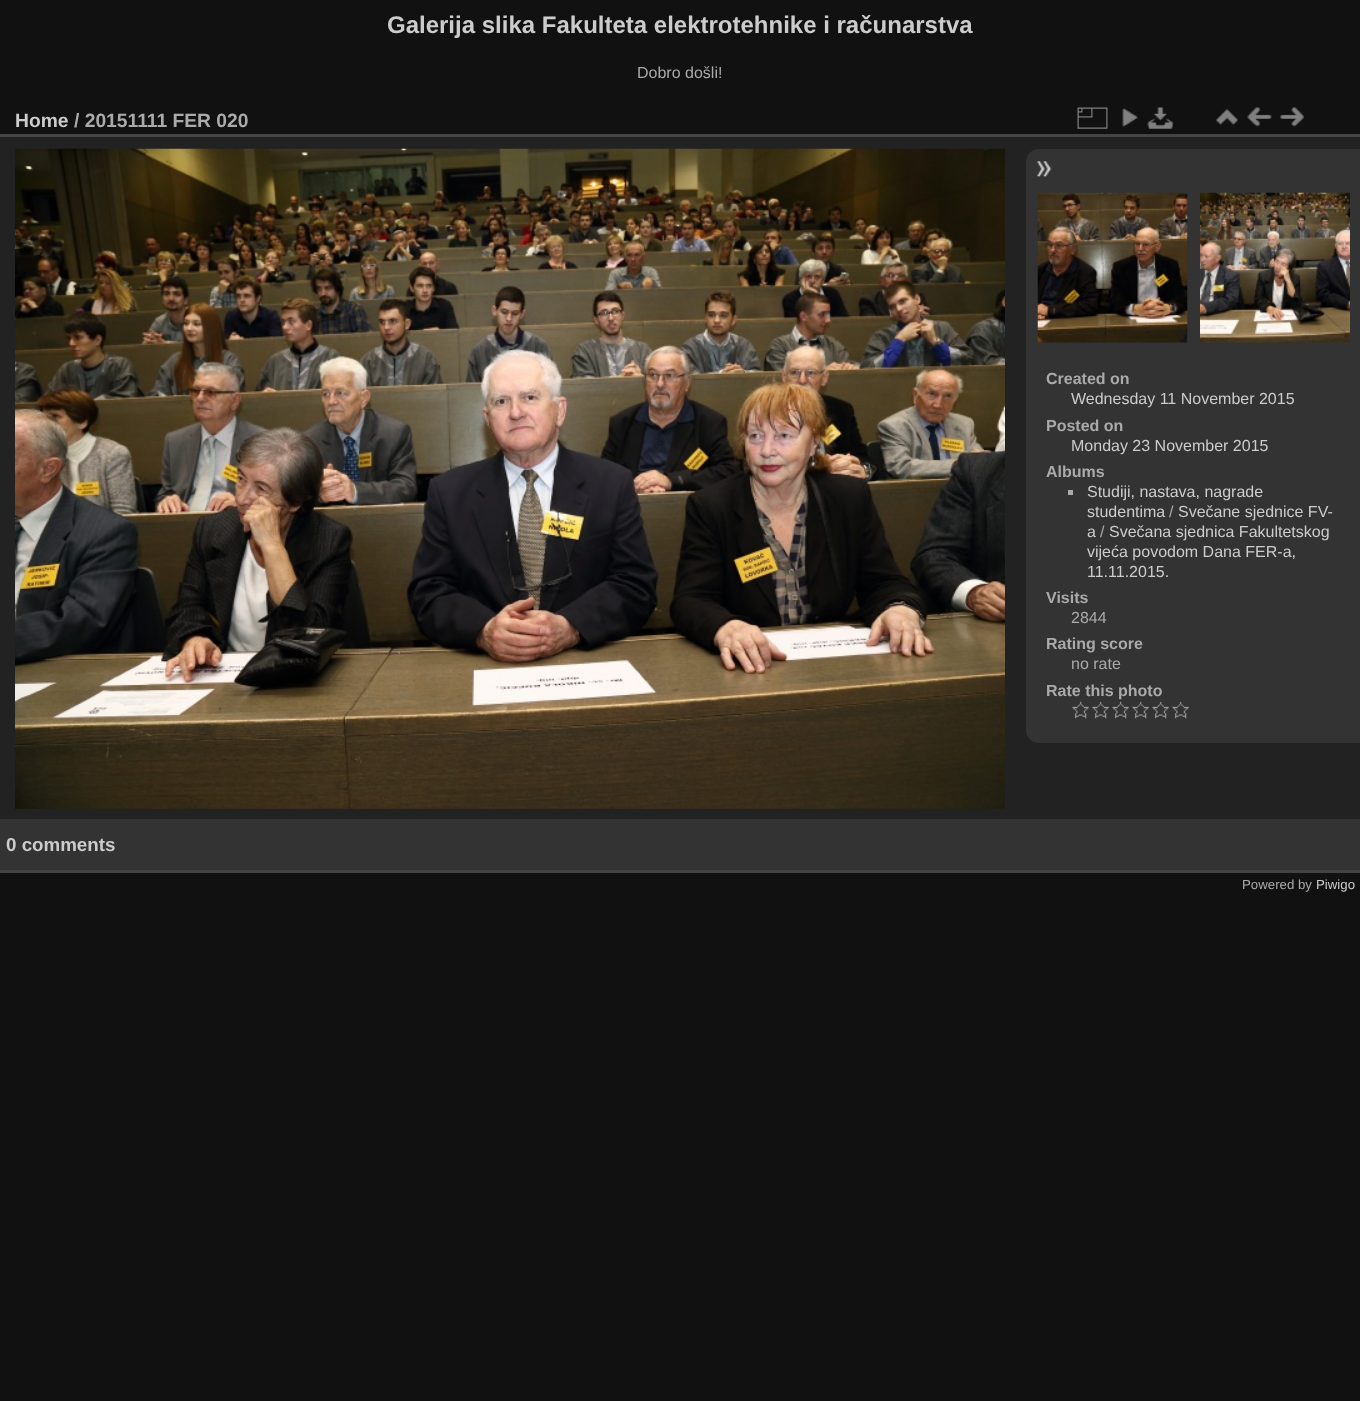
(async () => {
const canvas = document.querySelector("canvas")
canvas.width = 1360
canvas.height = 1401
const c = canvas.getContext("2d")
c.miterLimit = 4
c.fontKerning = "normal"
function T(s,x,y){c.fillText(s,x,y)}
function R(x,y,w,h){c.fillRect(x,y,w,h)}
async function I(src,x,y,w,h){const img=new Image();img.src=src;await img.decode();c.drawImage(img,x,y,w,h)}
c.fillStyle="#111"
R(0,0,1360,1401)
c.font="bold 24px Liberation Sans"
c.fillStyle="#ccc"
T("Galerija slika Fakulteta elektrotehnike i računarstva",387,33)
c.font="16px Liberation Sans"
c.fillStyle="#aaa"
T("Dobro došli!",637,78)
c.fillStyle="#222"
R(0,137,1360,682)
c.fillStyle="#444"
R(0,870,1360,3)
R(0,134,1360,3)
c.font="bold 19.25px Liberation Sans"
c.fillStyle="#ccc"
T("Home",15,127)
c.fillStyle="#aaa"
T("/ 20151111 FER 020",74,127)
await I("1.png",1077,107,31,22)
await I("2.png",1122,108,16,19)
await I("3.png",1147,107,27,22)
await I("4.png",1216,108,22,18)
await I("5.png",1247,107,25,20)
await I("6.png",1280,107,24,20)
await I("7.png",15,148,990,661)
c.fillStyle="#333"
c.beginPath()
c.roundRect(1026,149,334,594,[13,0,0,13])
c.fill()
await I("8.png",1037,161,15,16)
await I("9.png",1037,192,151,151)
await I("10.png",1200,192,150,151)
c.font="bold 16px Liberation Sans"
c.fillStyle="#aaa"
T("Created on",1046,384)
c.font="16px Liberation Sans"
c.fillStyle="#ccc"
T("Wednesday 11 November 2015",1071,404)
c.font="bold 16px Liberation Sans"
c.fillStyle="#aaa"
T("Posted on",1046,431)
c.font="16px Liberation Sans"
c.fillStyle="#ccc"
T("Monday 23 November 2015",1071,451)
c.font="bold 16px Liberation Sans"
c.fillStyle="#aaa"
T("Albums",1046,477)
R(1068,490,5,5)
c.font="16px Liberation Sans"
c.fillStyle="#ccc"
T("Studiji, nastava, nagrade",1087,497)
T("studentima",1087,517)
c.fillStyle="#aaa"
T("/",1169,517)
c.fillStyle="#ccc"
T("Svečane sjednice FV-",1178,517)
T("a",1087,537)
c.fillStyle="#aaa"
T("/",1100,537)
c.fillStyle="#ccc"
T("Svečana sjednica Fakultetskog",1109,537)
T("vijeća povodom Dana FER-a,",1087,557)
T("11.11.2015.",1087,577)
c.font="bold 16px Liberation Sans"
c.fillStyle="#aaa"
T("Visits",1046,603)
c.font="16px Liberation Sans"
T("2844",1071,623)
c.font="bold 16px Liberation Sans"
T("Rating score",1046,649)
c.font="16px Liberation Sans"
T("no rate",1071,669)
c.font="bold 16px Liberation Sans"
T("Rate this photo",1046,696)
await I("11.png",1072,701,17,18)
await I("11.png",1092,701,17,18)
await I("12.png",1112,701,17,18)
await I("12.png",1132,701,17,18)
await I("12.png",1152,701,17,18)
await I("12.png",1172,701,17,18)
c.fillStyle="#333"
R(0,819,1360,51)
c.font="bold 18.75px Liberation Sans"
c.fillStyle="#ccc"
T("0 comments",6,851)
c.font="13.25px Liberation Sans"
c.fillStyle="#aaa"
T("Powered by",1242,889)
c.fillStyle="#ccc"
T("Piwigo",1316,889)
})()
